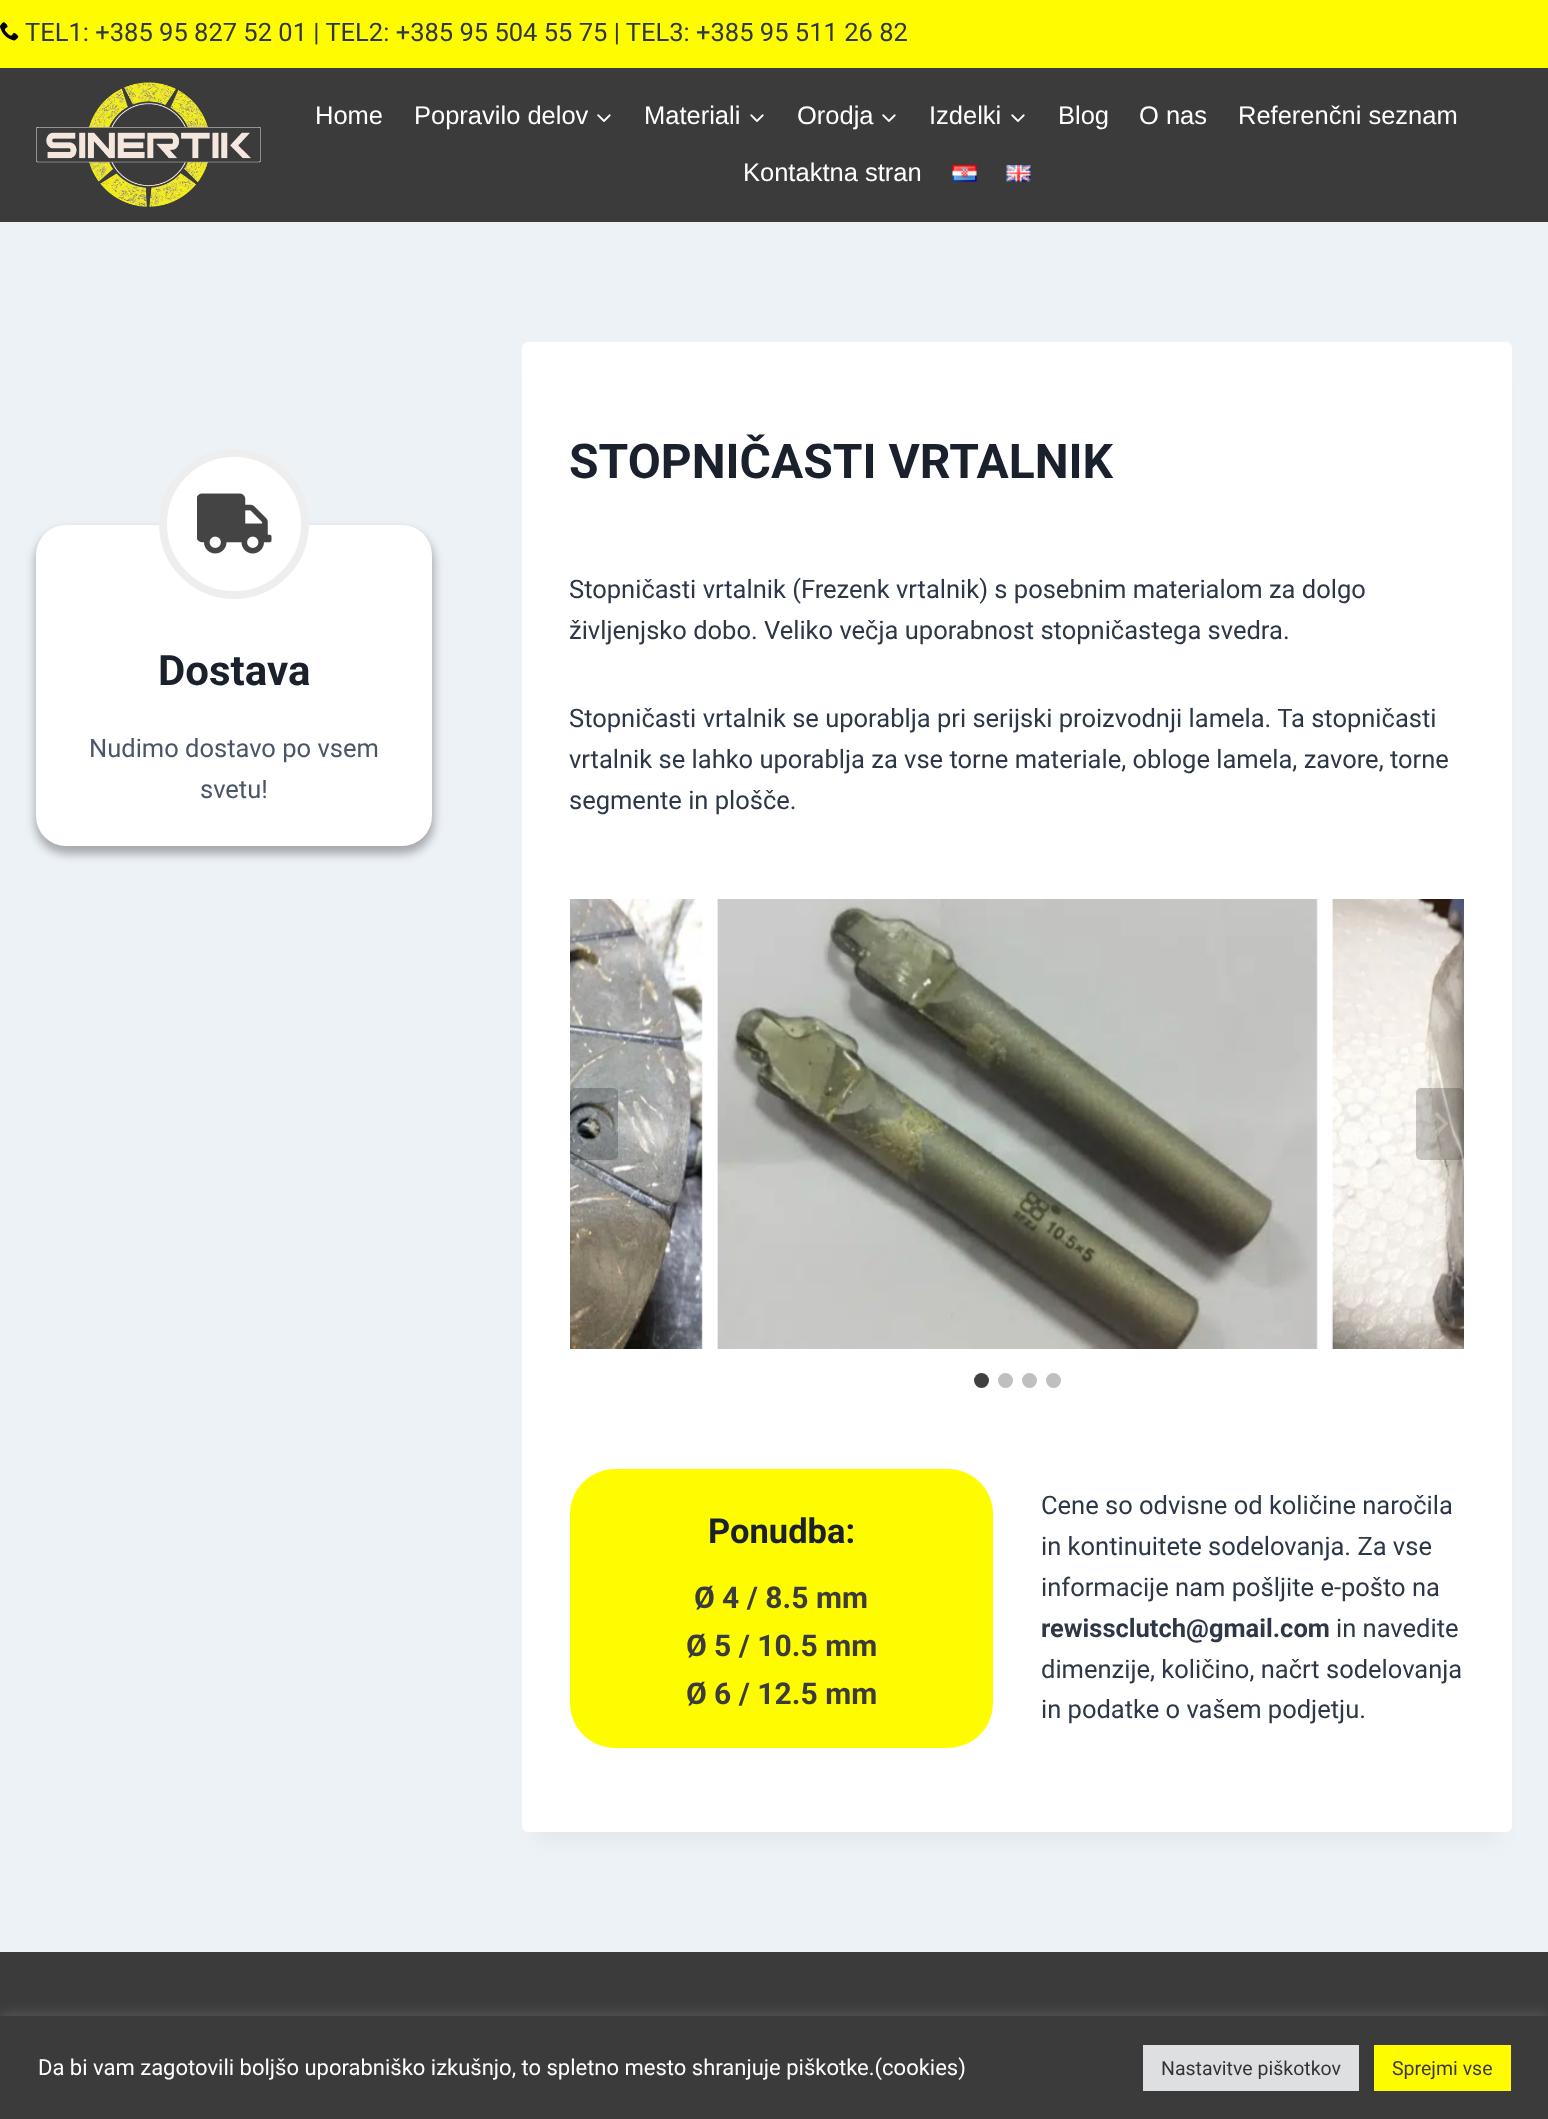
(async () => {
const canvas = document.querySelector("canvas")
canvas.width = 1548
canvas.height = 2119
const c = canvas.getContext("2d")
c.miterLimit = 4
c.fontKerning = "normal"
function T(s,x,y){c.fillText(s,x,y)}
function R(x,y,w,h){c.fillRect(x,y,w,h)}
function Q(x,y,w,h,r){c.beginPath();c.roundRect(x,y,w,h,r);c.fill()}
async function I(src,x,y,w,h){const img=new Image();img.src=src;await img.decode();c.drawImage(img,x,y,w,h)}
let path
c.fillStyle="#edf2f7"
R(0,0,1548,2119)
c.fillStyle="#3b3b3b"
R(0,68,1548,154)
c.fillStyle="#fffc00"
R(0,0,1548,68)
await I("1.png",0,22,19,19)
c.font="25.5px Roboto"
c.fillStyle="#2d3748"
T("TEL1: +385 95 827 52 01 | TEL2: +385 95 504 55 75 | TEL3: +385 95 511 26 82",25,41)
await I("2.png",36,82,225,125)
c.font="25.5px Liberation Sans"
c.fillStyle="#fff"
T("Home",315,124)
T("Popravilo delov",414,124)
await I("3.png",597,114,14,8)
T("Materiali",644,124)
await I("3.png",750,114,14,8)
T("Orodja",797,124)
await I("3.png",882,114,14,8)
T("Izdelki",929,124)
await I("3.png",1011,114,14,8)
T("Blog",1058,124)
T("O nas",1139,124)
T("Referenčni seznam",1238,124)
T("Kontaktna stran",743,181)
await I("4.png",952,165,25,17)
await I("5.png",1006,165,25,17)
c.fillStyle="#0000004d"
c.filter="blur(5px)"
c.beginPath()
c.roundRect(35,530,399,324,32)
c.fill()
c.filter="none"
c.fillStyle="#fff"
Q(36,525,396,321,30)
c.beginPath()
c.arc(234,524,71,0,7)
c.fill()
c.strokeStyle="#eee"
c.lineWidth=8
c.stroke()
await I("6.png",197,493,75,61)
c.font="bold 42px Roboto"
c.fillStyle="#1a202c"
T("Dostava",158,685)
c.font="25.5px Roboto"
c.fillStyle="#4a5568"
T("Nudimo dostavo po vsem",89,757)
T("svetu!",200,798)
c.fillStyle="#0000000d"
c.filter="blur(11px)"
c.beginPath()
c.rect(537,380,960,1459)
c.fill()
c.filter="none"
c.fillStyle="#fff"
Q(522,342,990,1490,6)
c.font="bold 48px Roboto"
c.fillStyle="#1a202c"
T("STOPNIČASTI VRTALNIK",569,478)
c.font="25.5px Roboto"
c.fillStyle="#2d3748"
T("Stopničasti vrtalnik (Frezenk vrtalnik) s posebnim materialom za dolgo",569,598)
T("življenjsko dobo. Veliko večja uporabnost stopničastega svedra.",569,639)
T("Stopničasti vrtalnik se uporablja pri serijski proizvodnji lamela. Ta stopničasti",569,727)
T("vrtalnik se lahko uporablja za vse torne materiale, obloge lamela, zavore, torne",569,768)
T("segmente in plošče.",569,809)
await I("7.png",570,899,133,450)
await I("8.png",717,899,601,450)
await I("9.png",1331,899,133,450)
c.fillStyle="#00000033"
Q(570,1088,48,72,5)
c.fillStyle="#ffffff40"
path = new Path2D("M595.5 1112l2.5 2.5l-8.5 9l8.5 8.5l-2.5 3l-11.5-11.5z")
c.fill(path)
c.fillStyle="#00000033"
Q(1416,1088,48,72,5)
c.fillStyle="#ffffff40"
path = new Path2D("M1437.5 1112l-3 2.5l9 9l-9 8.5l3 3l11-11.5z")
c.fill(path)
c.fillStyle="#404040"
c.beginPath()
c.arc(981.5,1380.5,7.5,0,7)
c.fill()
c.fillStyle="#bfbfbf"
c.beginPath()
c.arc(1005.5,1380.5,7.5,0,7)
c.fill()
c.beginPath()
c.arc(1029.5,1380.5,7.5,0,7)
c.fill()
c.beginPath()
c.arc(1053.5,1380.5,7.5,0,7)
c.fill()
c.fillStyle="#fffc00"
Q(570,1469,423,279,45)
c.font="bold 34.5px Roboto"
c.fillStyle="#1a202c"
T("Ponudba:",708,1543)
c.font="bold 30px Roboto"
c.fillStyle="#3b3b3b"
T("Ø 4 / 8.5 mm",694,1608)
T("Ø 5 / 10.5 mm",686,1656)
T("Ø 6 / 12.5 mm",686,1704)
c.font="25.5px Roboto"
c.fillStyle="#2d3748"
T("Cene so odvisne od količine naročila",1041,1514)
T("in kontinuitete sodelovanja. Za vse",1041,1555)
T("informacije nam pošljite e-pošto na",1041,1596)
c.font="bold 25.5px Roboto"
T("rewissclutch@gmail.com",1041,1637)
c.font="25.5px Roboto"
T("in navedite",1336,1637)
T("dimenzije, količino, načrt sodelovanja",1041,1678)
T("in podatke o vašem podjetju.",1041,1718)
c.fillStyle="#3b3b3b"
R(0,1952,1548,64)
c.fillStyle="#acabab4d"
c.filter="blur(7.5px)"
c.beginPath()
c.rect(0,2015,1548,103)
c.fill()
c.filter="none"
c.fillStyle="#3b3b3b"
R(0,2016,1548,103)
c.font="22px Roboto"
c.fillStyle="#fff"
T("Da bi vam zagotovili boljšo uporabniško izkušnjo, to spletno mesto shranjuje piškotke.(cookies)",38,2075)
c.fillStyle="#dedfe0"
R(1143,2045,216,46)
c.font="19.5px Roboto"
c.fillStyle="#333"
T("Nastavitve piškotkov",1161,2075)
c.fillStyle="#fffc00"
R(1374,2045,137,46)
c.fillStyle="#3b3b3b"
T("Sprejmi vse",1392,2075)
})()
